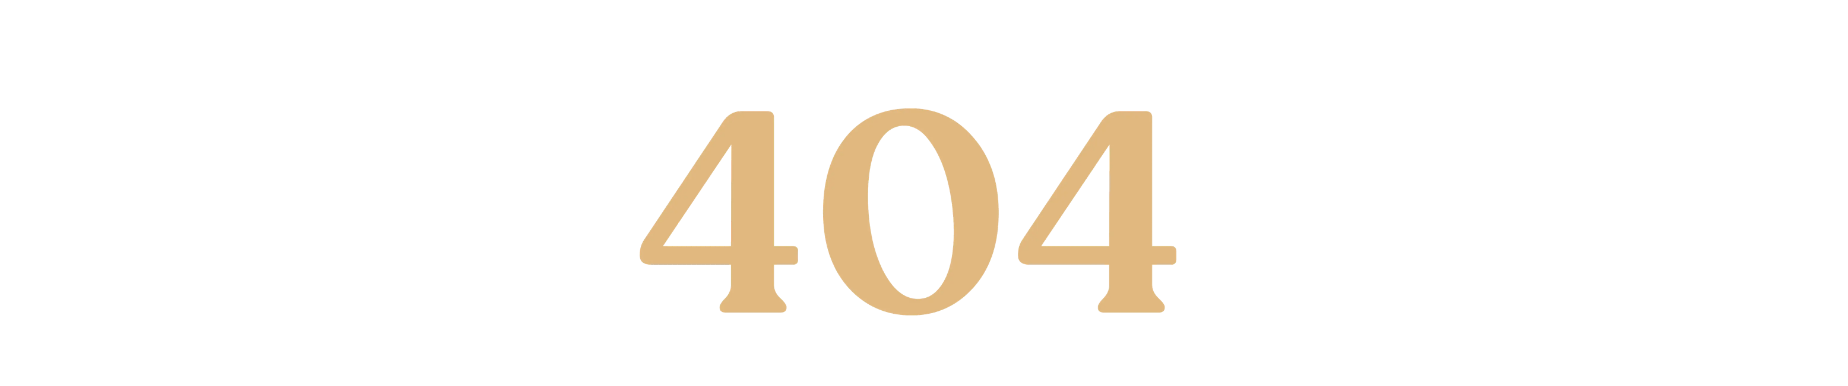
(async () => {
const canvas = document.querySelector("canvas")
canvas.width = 1848
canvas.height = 386
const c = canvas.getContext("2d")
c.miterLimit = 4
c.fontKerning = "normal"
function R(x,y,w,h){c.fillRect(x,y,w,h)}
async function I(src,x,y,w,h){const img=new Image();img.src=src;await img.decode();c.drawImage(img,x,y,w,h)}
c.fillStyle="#fff"
R(0,0,1848,386)
await I("1.png",639,108,538,208)
})()
